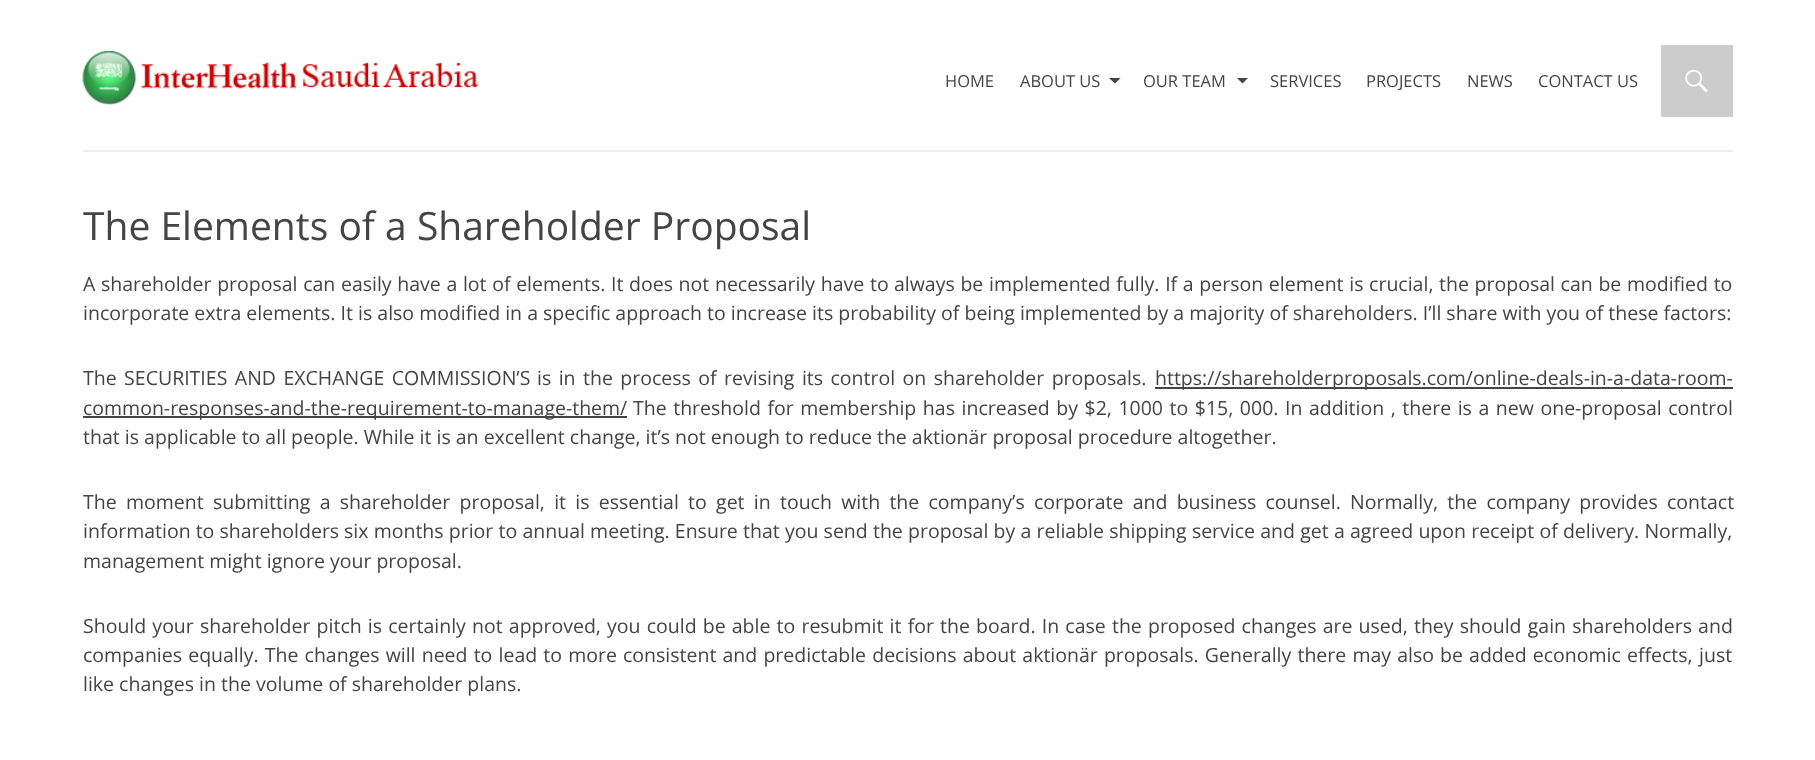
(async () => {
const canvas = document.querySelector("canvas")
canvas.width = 1815
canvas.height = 760
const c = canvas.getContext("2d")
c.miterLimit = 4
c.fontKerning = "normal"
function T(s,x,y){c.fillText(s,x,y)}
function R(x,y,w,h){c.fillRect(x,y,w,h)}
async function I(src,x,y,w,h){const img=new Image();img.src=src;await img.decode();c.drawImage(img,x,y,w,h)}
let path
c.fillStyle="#fff"
R(0,0,1815,760)
c.fillStyle="#eee"
R(83,150,1650,2)
await I("1.png",82,51,397,54)
c.font="16.5px Open Sans"
c.fillStyle="#444"
T("HOME",945,87)
T("ABOUT US",1020,87)
path = new Path2D("M1109 78l6 5.5l5.5-5.5z")
c.fill(path)
T("OUR TEAM",1143,87)
path = new Path2D("M1237 78l5.5 5.5l5.5-5.5z")
c.fill(path)
T("SERVICES",1270,87)
T("PROJECTS",1366,87)
T("NEWS",1467,87)
T("CONTACT US",1538,87)
c.fillStyle="#ccc"
R(1661,45,72,72)
await I("2.png",1685,69,23,23)
c.font="39px Open Sans"
c.fillStyle="#444"
T("The Elements of a Shareholder Proposal",83,240)
c.wordSpacing="0.6px"
c.font="19.5px Open Sans"
T("A shareholder proposal can easily have a lot of elements. It does not necessarily have to",83,291)
T("always be implemented fully. If a person element is crucial, the proposal can be modified to",894,291)
c.wordSpacing="0px"
T("incorporate extra elements. It is also modified in a specific approach to increase its probability of being implemented by a majority of shareholders. I’ll share with you of these factors:",83,320)
c.wordSpacing="2.4px"
T("The SECURITIES AND EXCHANGE COMMISSION’S",83,385)
T("is in the process of revising its control on shareholder proposals.",537,385)
R(1155,387,578,2)
c.wordSpacing="0px"
T("https://shareholderproposals.com/online-deals-in-a-data-room-",1155,385)
R(83,416,544,2)
T("common-responses-and-the-requirement-to-manage-them/",83,415)
c.wordSpacing="1.5px"
T("The threshold for membership has increased by $2, 1000 to $15, 000. In addition , there is a new one-proposal control",633,415)
c.wordSpacing="0px"
T("that is applicable to all people. While it is an excellent change, it’s not enough to reduce the aktionär proposal procedure altogether.",83,444)
c.wordSpacing="4.2px"
T("The moment submitting a shareholder proposal, it is essential to get in touch with the company’s corporate and business counsel. Normally, the company provides contact",83,509)
c.wordSpacing="0px"
T("information to shareholders",83,538)
c.wordSpacing="0.15px"
T("six months prior to annual meeting. Ensure that you send the proposal by a reliable shipping service and get a agreed upon receipt of delivery. Normally,",344,538)
c.wordSpacing="0px"
T("management might ignore your proposal.",83,568)
c.wordSpacing="1.1px"
T("Should your shareholder pitch is certainly not approved, you could be able to resubmit it for the board. In case the proposed changes are used, they should gain shareholders and",83,633)
T("companies equally. The changes will need to lead to more consistent and predictable decisions about aktionär proposals. Generally there may also",83,662)
T("be added economic effects,",1440,662)
c.wordSpacing="0px"
T("just",1699,662)
T("like changes in the volume of shareholder plans.",83,691)
})()
